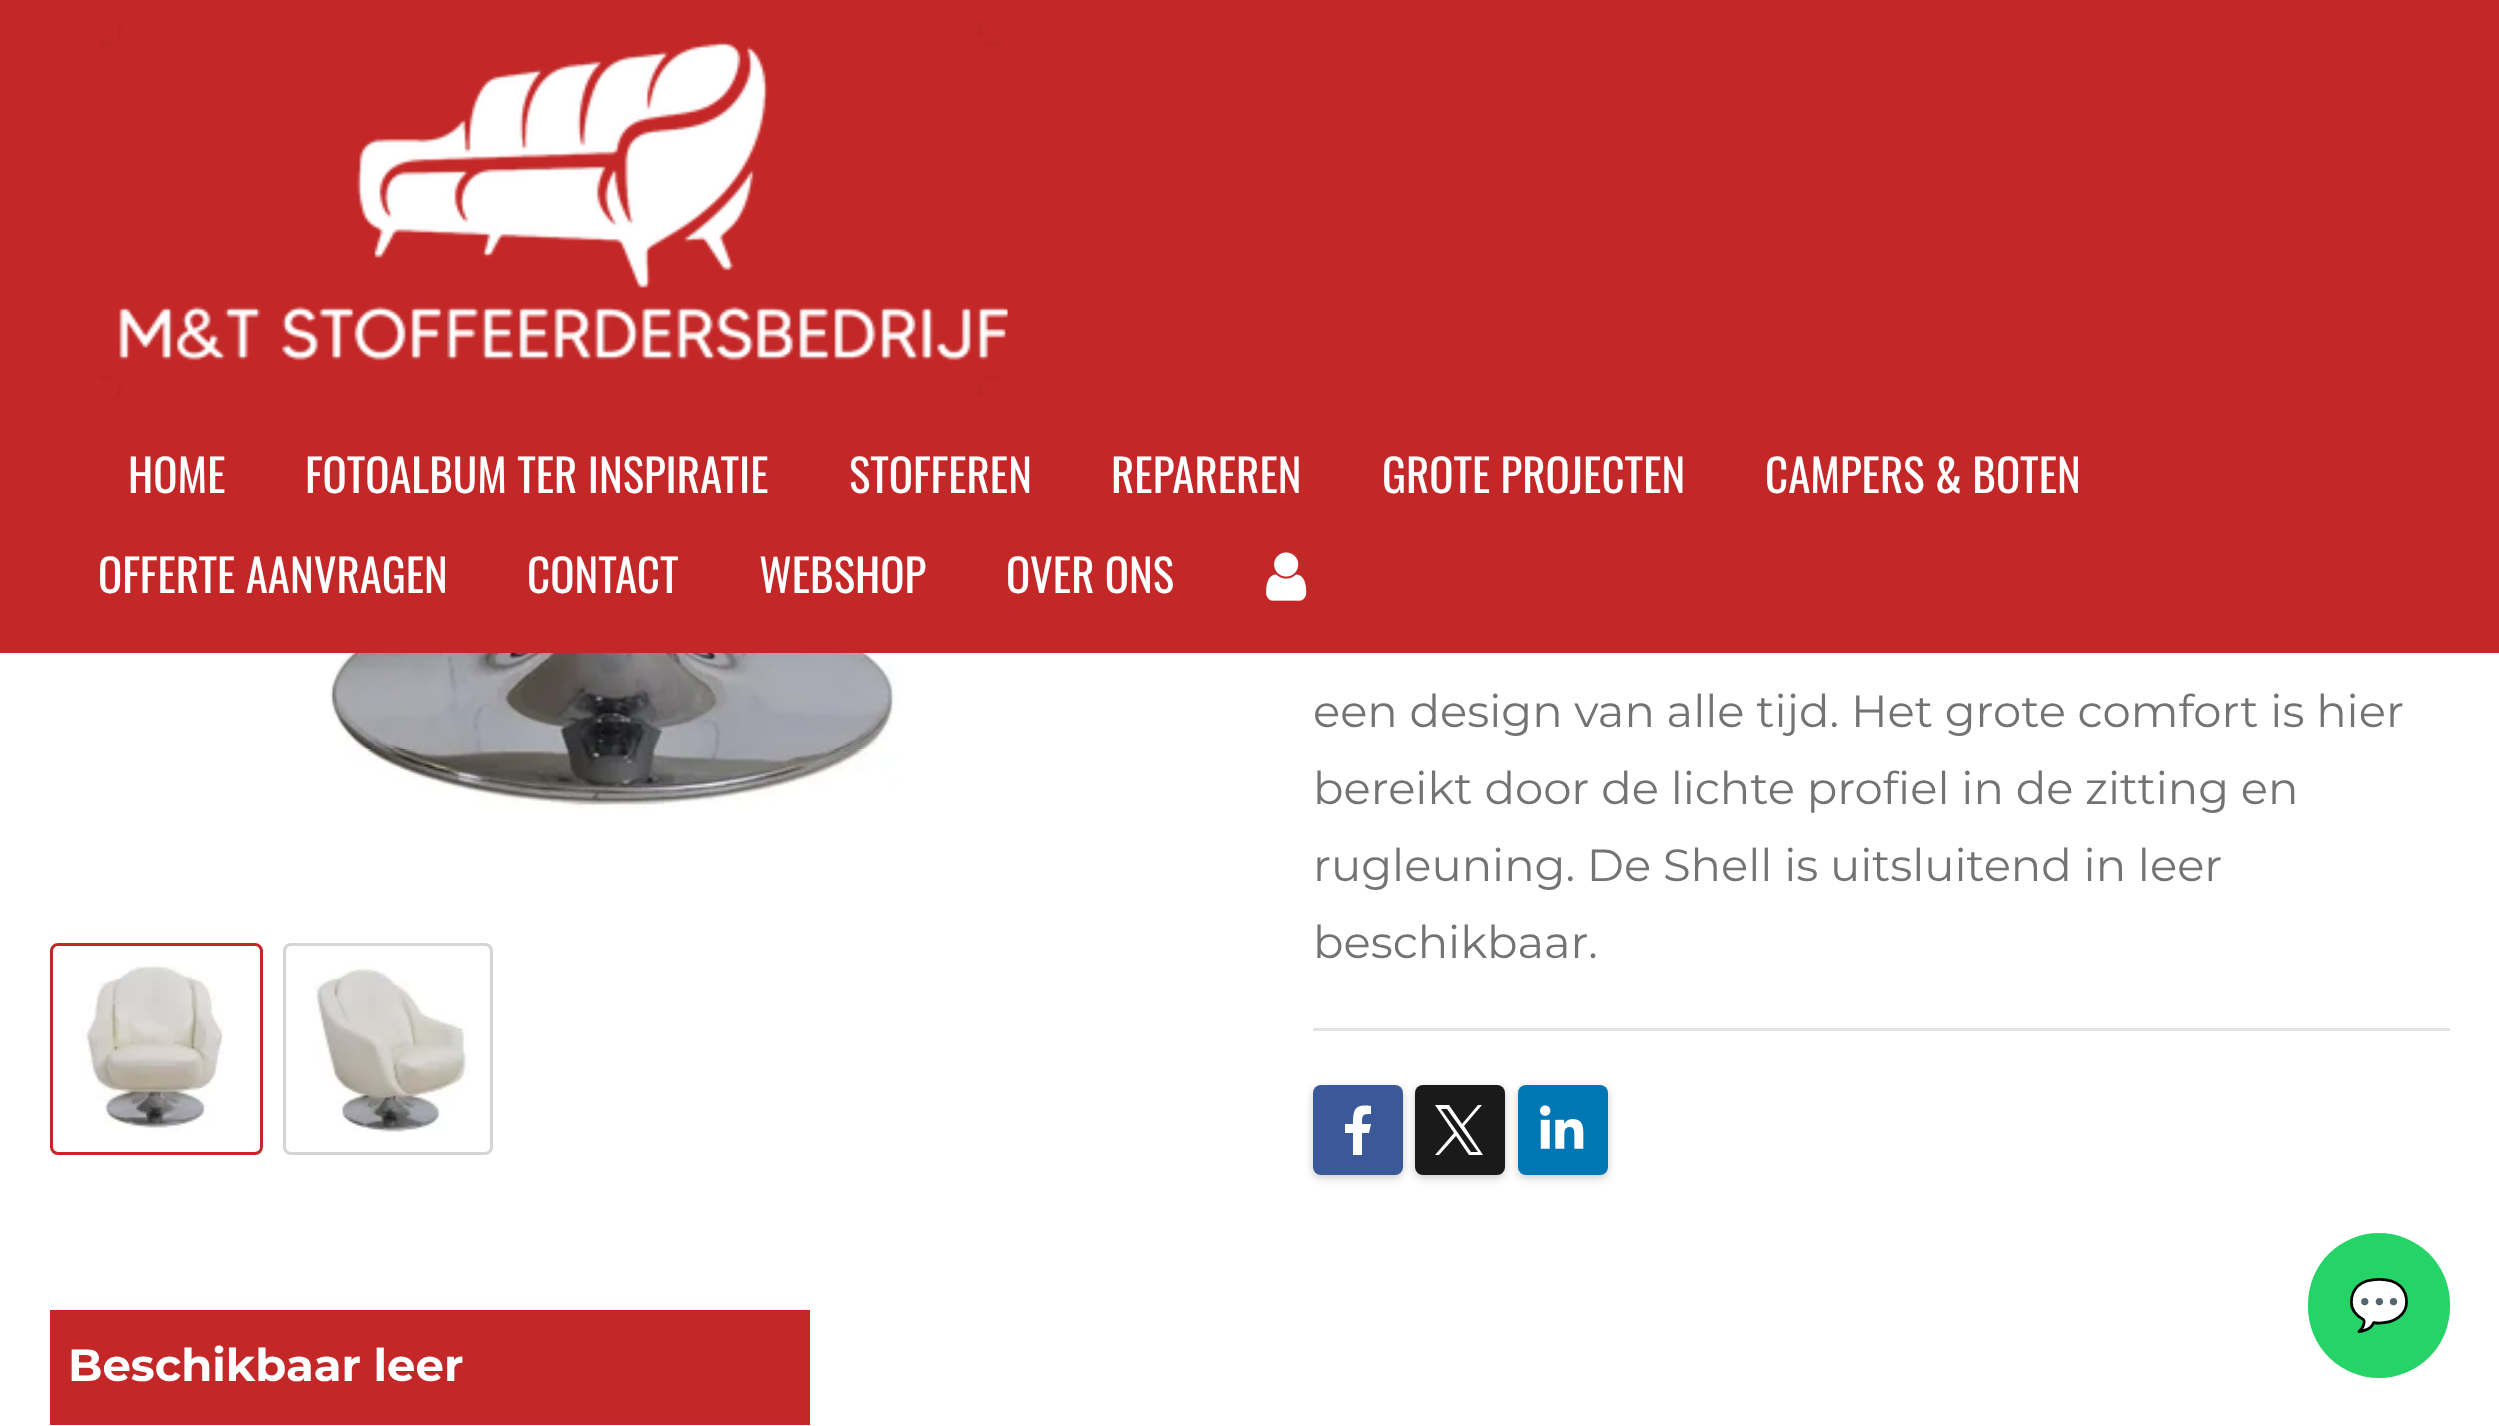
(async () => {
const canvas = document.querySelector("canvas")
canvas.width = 2499
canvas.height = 1426
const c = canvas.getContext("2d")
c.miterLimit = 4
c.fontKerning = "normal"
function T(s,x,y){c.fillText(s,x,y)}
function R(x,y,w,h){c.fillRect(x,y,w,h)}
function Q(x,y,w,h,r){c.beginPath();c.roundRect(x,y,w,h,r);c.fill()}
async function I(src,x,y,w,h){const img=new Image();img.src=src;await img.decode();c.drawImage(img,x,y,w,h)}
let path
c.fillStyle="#fff"
R(0,0,2499,1426)
c.fillStyle="#c42727"
R(0,0,2499,653)
await I("1.png",100,25,908,372)
c.font="45px Oswald"
c.fillStyle="#fff"
T("HOME",128,493)
T("FOTOALBUM TER INSPIRATIE",305,493)
T("STOFFEREN",849,493)
T("REPAREREN",1111,493)
T("GROTE PROJECTEN",1382,493)
T("CAMPERS & BOTEN",1765,493)
T("OFFERTE AANVRAGEN",98,593)
T("CONTACT",527,593)
T("WEBSHOP",759,593)
T("OVER ONS",1006,593)
await I("2.png",1266,552,41,49)
await I("3.png",224,653,775,156)
c.beginPath()
c.roundRect(51.5,944.5,210,209,6.5)
c.strokeStyle="#c42727"
c.lineWidth=3
c.stroke()
await I("4.png",81,965,143,166)
c.beginPath()
c.roundRect(284.5,944.5,207,209,6.5)
c.strokeStyle="#d5d5d5"
c.stroke()
await I("5.png",314,966,156,166)
c.font="45px Montserrat"
c.fillStyle="#737373"
T("een design van alle tijd. Het grote comfort is hier",1313,727)
T("bereikt door de lichte profiel in de zitting en",1313,804)
T("rugleuning. De Shell is uitsluitend in leer",1313,881)
T("beschikbaar.",1313,958)
c.fillStyle="#e3e3e3"
R(1313,1028,1137,3)
c.fillStyle="#00000033"
c.filter="blur(4px)"
c.beginPath()
c.roundRect(1313,1088,90,90,8)
c.fill()
c.filter="none"
c.fillStyle="#3b5998"
Q(1313,1085,90,90,8)
c.fillStyle="#fff"
path = new Path2D("M1369 1133l2-9h-9c0-9 0-10 9-10v-8c-16-2-18 3-18 18h-8v9h8v22h9v-22z")
c.fill(path)
c.fillStyle="#00000033"
c.filter="blur(4px)"
c.beginPath()
c.roundRect(1415,1088,90,90,8)
c.fill()
c.filter="none"
c.fillStyle="#1a1a1a"
Q(1415,1085,90,90,8)
c.fillStyle="#fff"
path = new Path2D("M1464 1126l18-21h-4l-16 19l-13-19h-14l19 28l-19 22h4l17-19l13 19h14zm-6 7l-17-24h6l31 43h-7z")
c.fill(path)
c.fillStyle="#00000033"
c.filter="blur(4px)"
c.beginPath()
c.roundRect(1518,1088,90,90,8)
c.fill()
c.filter="none"
c.fillStyle="#0077b5"
Q(1518,1085,90,90,8)
await I("6.png",1540,1105,44,44)
c.fillStyle="#c42727"
R(50,1310,760,115)
c.font="bold 45px Montserrat"
c.fillStyle="#fff"
T("Beschikbaar leer",68,1381)
c.fillStyle="#25d366"
Q(2308,1233,142,145,71)
c.font="50px Noto Color Emoji"
c.fillStyle="#fff"
T("💬",2348,1322)
})()
